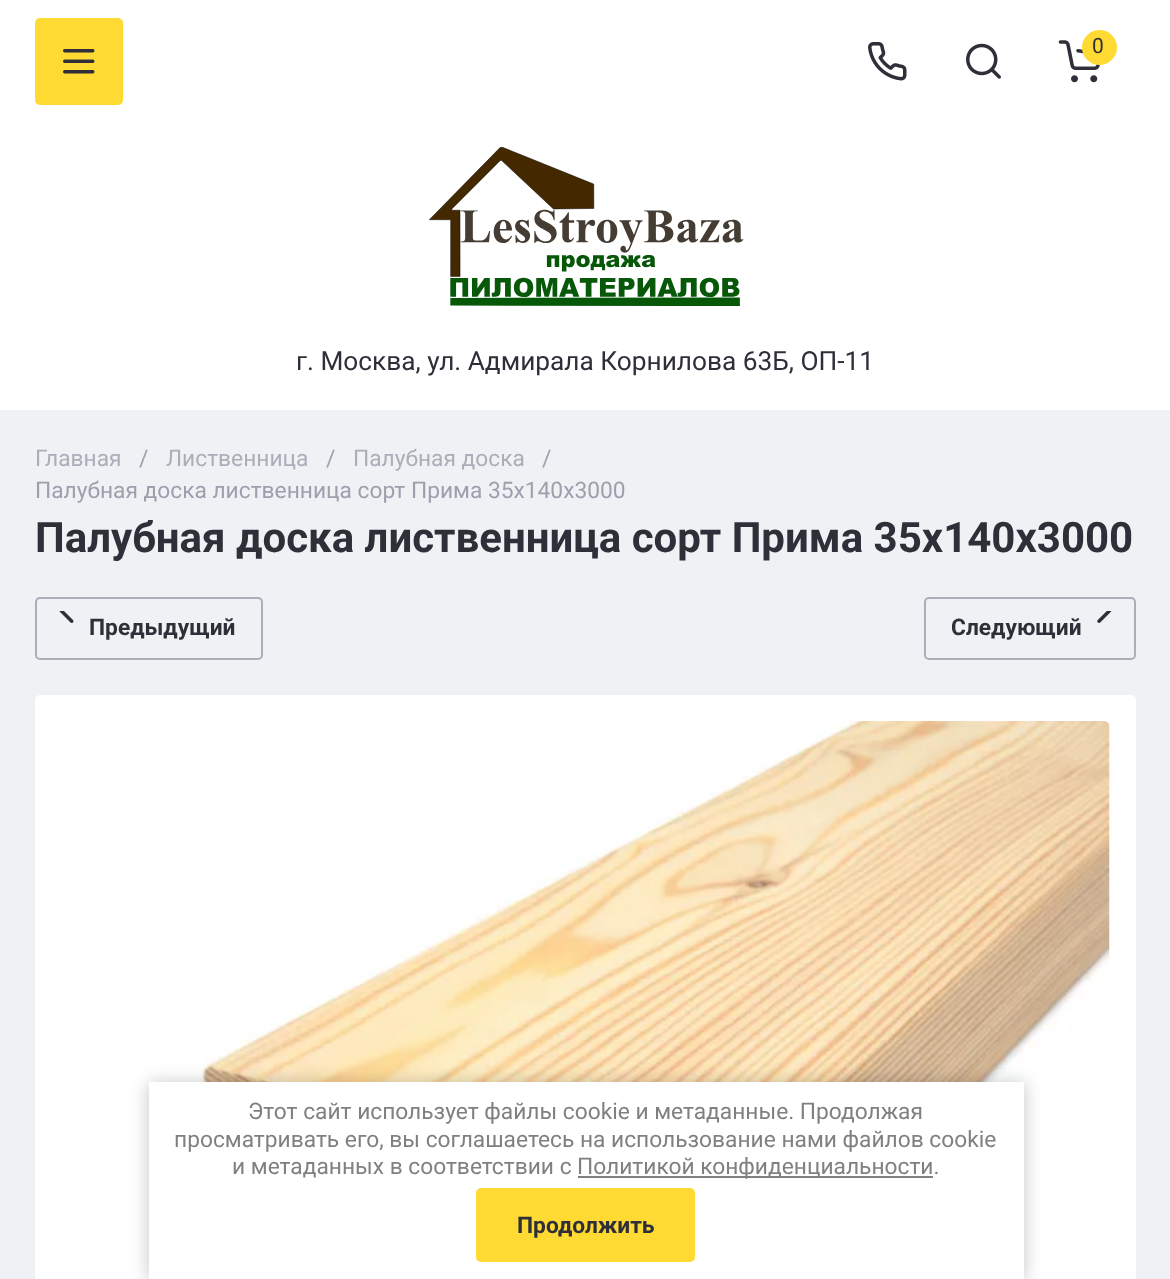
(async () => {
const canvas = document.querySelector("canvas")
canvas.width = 1170
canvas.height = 1279
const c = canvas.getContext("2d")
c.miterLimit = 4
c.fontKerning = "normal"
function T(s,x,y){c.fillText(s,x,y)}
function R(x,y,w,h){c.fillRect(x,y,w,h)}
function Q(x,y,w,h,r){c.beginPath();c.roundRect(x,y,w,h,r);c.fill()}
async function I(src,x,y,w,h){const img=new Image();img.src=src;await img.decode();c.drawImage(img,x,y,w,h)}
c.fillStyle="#f0f1f4"
R(0,0,1170,1279)
c.fillStyle="#fff"
R(0,0,1170,410)
c.fillStyle="#ffda33"
Q(35,18,88,87,5)
await I("1.png",63,49,32,25)
await I("2.png",868,42,39,39)
await I("3.png",966,43,35,36)
await I("4.png",1058,40,43,43)
c.beginPath()
c.arc(1099.5,47.5,17.5,0,7)
c.fill()
c.font="21px Roboto"
c.fillStyle="#2e2f38"
T("0",1092,53)
await I("5.png",429,147,315,159)
c.font="26.25px Roboto"
T("г. Москва, ул. Адмирала Корнилова 63Б, ОП-11",296,370)
c.font="22.75px Roboto"
c.fillStyle="#acadb9"
T("Главная",35,466)
c.fillStyle="#9e9fad"
T("/",139,466)
c.fillStyle="#acadb9"
T("Лиственница",166,466)
c.fillStyle="#9e9fad"
T("/",326,466)
c.fillStyle="#acadb9"
T("Палубная доска",353,466)
c.fillStyle="#9e9fad"
T("/",542,466)
T("Палубная доска лиственница сорт Прима 35х140х3000",35,498)
c.font="bold 42px Roboto"
c.fillStyle="#2e2f38"
T("Палубная доска лиственница сорт Прима 35х140х3000",35,552)
c.beginPath()
c.roundRect(36,598,226,61,4)
c.strokeStyle="#acadb9"
c.lineWidth=2
c.stroke()
await I("6.png",59,611,15,12)
c.font="bold 22.75px Roboto"
T("Предыдущий",89,635)
c.beginPath()
c.roundRect(925,598,210,61,4)
c.stroke()
T("Следующий",951,635)
await I("7.png",1097,611,15,12)
c.fillStyle="#fff"
Q(35,695,1101,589,5)
await I("8.png",201,721,909,558)
c.fillStyle="#0000003b"
c.filter="blur(9px)"
c.beginPath()
c.rect(149,1083,875,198)
c.fill()
c.filter="none"
c.fillStyle="#fff"
R(149,1082,875,197)
c.font="22.75px Roboto"
c.fillStyle="#808080"
T("Этот сайт использует файлы cookie и метаданные. Продолжая",248,1119)
T("просматривать его, вы соглашаетесь на использование нами файлов cookie",174,1147)
T("и метаданных в соответствии с",232,1174)
R(578,1176,355,2)
T("Политикой конфиденциальности.",577,1174)
c.fillStyle="#ffda33"
Q(476,1188,219,74,5)
c.font="bold 22.75px Roboto"
c.fillStyle="#2e2f38"
T("Продолжить",517,1233)
})()
